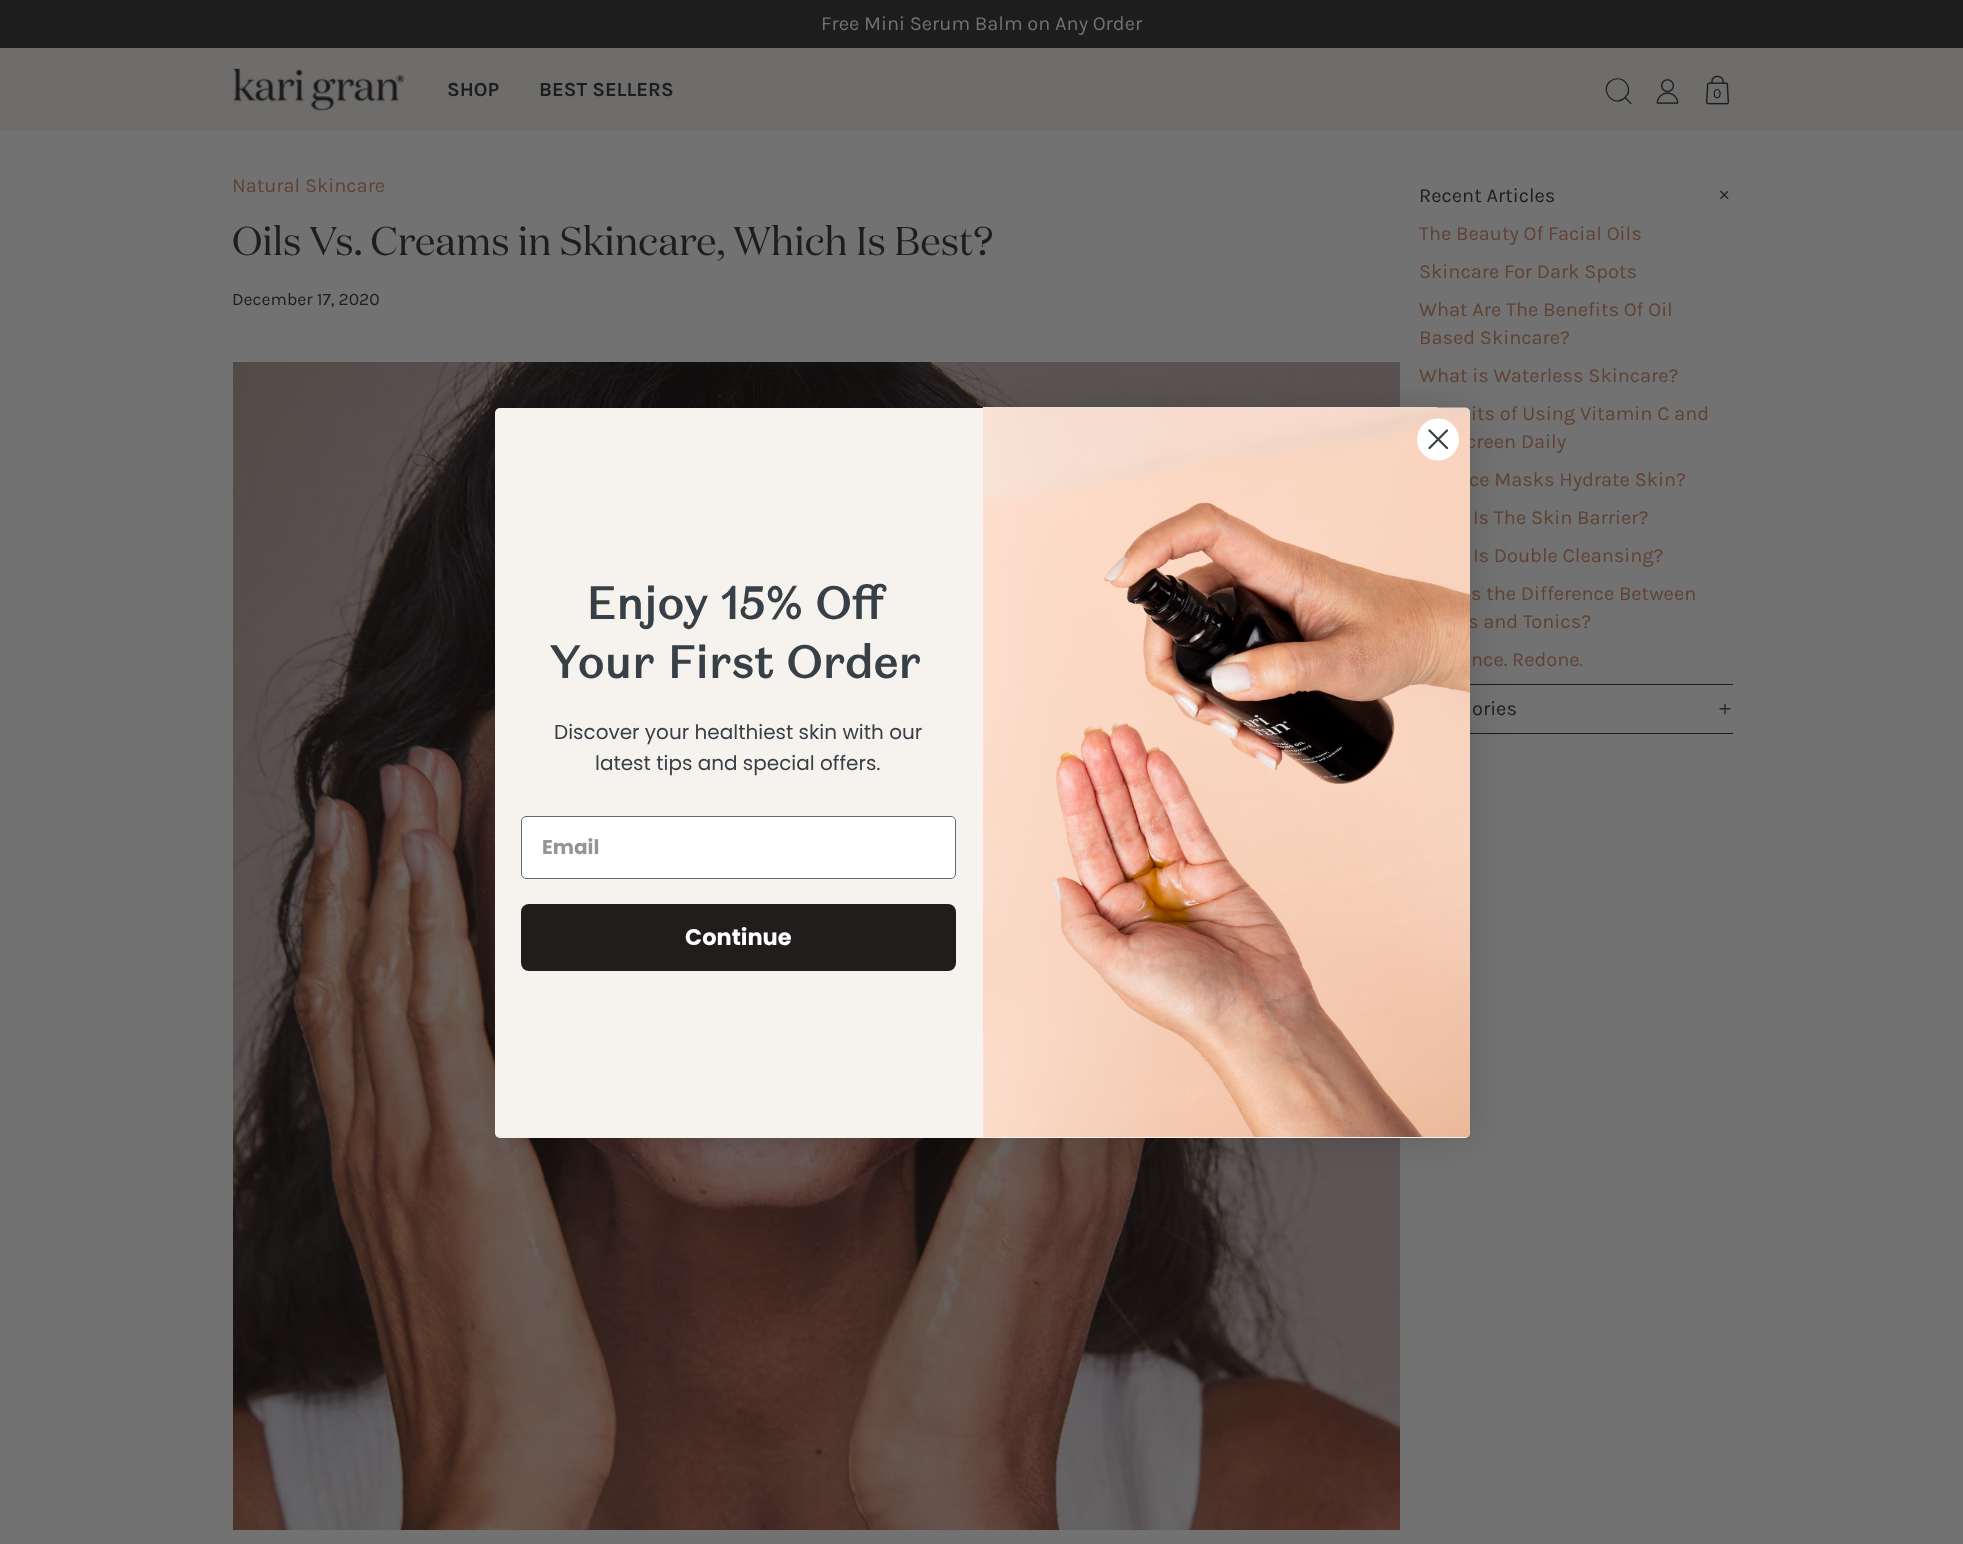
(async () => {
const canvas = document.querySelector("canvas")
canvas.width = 1963
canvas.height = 1544
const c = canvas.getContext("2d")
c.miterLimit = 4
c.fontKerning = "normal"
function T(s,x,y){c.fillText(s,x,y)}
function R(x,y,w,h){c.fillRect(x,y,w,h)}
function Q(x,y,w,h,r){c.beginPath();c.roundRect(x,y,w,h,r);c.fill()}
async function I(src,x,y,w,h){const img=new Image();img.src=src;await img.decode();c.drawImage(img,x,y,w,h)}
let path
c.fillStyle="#727272"
R(0,0,1963,1544)
c.fillStyle="#1d1d1d"
R(0,0,1963,48)
c.font="20px Karla"
c.fillStyle="#727272"
T("Free Mini Serum Balm on Any Order",821,30)
c.fillStyle="#6e6d6c"
R(0,48,1963,83)
await I("1.png",232,68,173,44)
c.font="bold 20px Karla"
c.fillStyle="#1d1d1d"
T("SHOP",447,96)
T("BEST SELLERS",539,96)
path = new Path2D("M1631 103.5l-6-6m0 0c8-7.5 1-20.5-10-18.5c-2 .5-4 1.5-5.5 3c-10 10.5 5.5 26 15.5 15.5z")
c.strokeStyle="#1d1d1d"
c.lineWidth=1.2
c.lineCap="round"
c.lineJoin="round"
c.stroke(path)
await I("2.png",1656,79,23,25)
await I("3.png",1706,75,23,30)
c.font="14px Karla"
T("0",1713,98)
c.font="20px Karla"
c.fillStyle="#5f4234"
T("Natural Skincare",232,192)
c.font="40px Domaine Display"
c.fillStyle="#1d1d1d"
T("Oils Vs. Creams in Skincare, Which Is Best?",232,255)
c.font="17.5px Karla"
T("December 17, 2020",232,305)
await I("4.png",233,362,1167,1168)
R(1470,684,263,1)
c.font="20px Karla"
T("Recent Articles",1419,202)
await I("5.png",1720,190,9,9)
c.fillStyle="#5f4234"
T("The Beauty Of Facial Oils",1419,240)
T("Skincare For Dark Spots",1419,278)
T("What Are The Benefits Of Oil",1419,316)
T("Based Skincare?",1419,344)
T("What is Waterless Skincare?",1419,382)
T("its of Using Vitamin C and",1471,420)
T("creen Daily",1466,448)
T("ce Masks Hydrate Skin?",1469,486)
T("Is The Skin Barrier?",1473,524)
T("Is Double Cleansing?",1473,562)
T("s the Difference Between",1471,600)
T("s and Tonics?",1468,628)
T("nce. Redone.",1471,666)
c.fillStyle="#1d1d1d"
R(1470,733,263,1)
T("ories",1472,715)
await I("6.png",1719,704,12,11)
c.fillStyle="#00000026"
c.filter="blur(19px)"
c.beginPath()
c.roundRect(495,408,975,730,5)
c.fill()
c.filter="none"
c.fillStyle="#f6f3ef"
Q(495,408,975,730,5)
await I("7.png",983,407,487,730)
c.fillStyle="#fff"
c.beginPath()
c.arc(1438,439.5,21,0,7)
c.fill()
path = new Path2D("M1429.5 430.5l17.5 17.5m-17.5 0l17.5-17.5z")
c.strokeStyle="#373f47"
c.lineWidth=2.2
c.stroke(path)
c.font="bold 45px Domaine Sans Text"
c.fillStyle="#374047"
T("Enjoy 15% Off",586,619)
T("Your First Order",549,678)
c.font="20px Poppins"
T("Discover your healthiest skin with our",554,739)
T("latest tips and special offers.",595,770)
c.fillStyle="#fff"
c.beginPath()
c.roundRect(521.5,816.5,434,62,4.5)
c.fill()
c.strokeStyle="#606a72"
c.lineWidth=1
c.lineJoin="miter"
c.stroke()
c.font="bold 20px Poppins"
c.fillStyle="#949596"
T("Email",542,854)
c.fillStyle="#211d1c"
Q(521,904,435,67,8)
c.font="bold 22.5px Poppins"
c.fillStyle="#fff"
T("Continue",685,945)
})()
